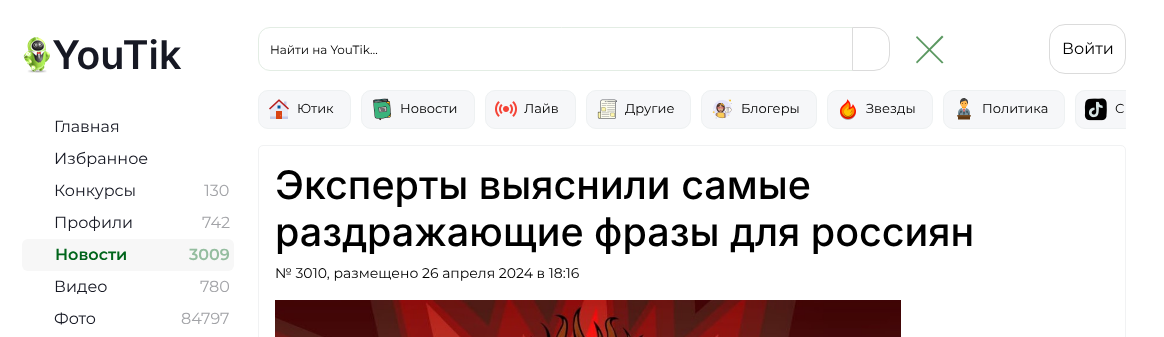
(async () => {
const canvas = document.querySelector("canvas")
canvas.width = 1164
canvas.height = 337
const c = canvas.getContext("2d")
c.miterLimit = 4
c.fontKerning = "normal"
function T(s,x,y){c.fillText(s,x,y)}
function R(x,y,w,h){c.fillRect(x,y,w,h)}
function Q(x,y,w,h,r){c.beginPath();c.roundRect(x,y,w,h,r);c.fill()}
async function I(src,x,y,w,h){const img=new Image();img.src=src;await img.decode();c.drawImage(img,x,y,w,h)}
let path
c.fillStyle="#fff"
R(0,0,1164,337)
await I("1.png",23,37,27,36)
c.font="600 39.5px Inter"
c.fillStyle="#161823"
T("YouTik",52,69)
c.font="16px Montserrat"
T("Главная",54,132)
T("Избранное",54,164)
T("Конкурсы",54,196)
c.fillStyle="#a2a3a7"
T("130",204,196)
c.fillStyle="#161823"
T("Профили",54,228)
c.fillStyle="#a2a3a7"
T("742",202,228)
c.fillStyle="#f7f7f7"
Q(22,239,212,32,6)
c.font="600 16px Montserrat"
c.fillStyle="#00651b"
T("Новости",55,260)
c.fillStyle="#94bd9f"
T("3009",189,260)
c.font="16px Montserrat"
c.fillStyle="#161823"
T("Видео",54,292)
c.fillStyle="#a2a3a7"
T("780",200,292)
c.fillStyle="#161823"
T("Фото",54,324)
c.fillStyle="#a2a3a7"
T("84797",181,324)
c.beginPath()
c.roundRect(258.5,27.5,594,43,[11.5,0,0,11.5])
c.strokeStyle="#e3ede4"
c.stroke()
c.fillStyle="#fff"
c.beginPath()
c.roundRect(852.5,27.5,37,43,[0,15.5,15.5,0])
c.fill()
c.strokeStyle="#dbdbdb"
c.stroke()
c.font="12px Montserrat"
c.fillStyle="#000"
T("Найти на YouTik…",270,54)
c.fillStyle="#5b9861"
path = new Path2D("M917 36l26.5 26.5l-1.5 1l-26-26z")
c.fill(path)
path = new Path2D("M916 62l26-26.5l1.5 1.5l-26.5 26.5z")
c.fill(path)
c.beginPath()
c.roundRect(1049.5,24.5,76,49,15.5)
c.stroke()
c.font="16px Montserrat"
c.fillStyle="#000"
T("Войти",1062,54)
c.fillStyle="#f6f7f9"
c.beginPath()
c.roundRect(258.5,90.5,92,38,9.5)
c.fill()
c.strokeStyle="#eef1f2"
c.stroke()
await I("2.png",269,99,20,20)
c.font="13px Montserrat"
c.fillStyle="#000"
T("Ютик",297,113)
c.fillStyle="#f6f7f9"
c.beginPath()
c.roundRect(361.5,90.5,113,38,9.5)
c.fill()
c.stroke()
await I("3.png",373,98,18,23)
c.fillStyle="#000"
T("Новости",400,113)
c.fillStyle="#f6f7f9"
c.beginPath()
c.roundRect(485.5,90.5,90,38,9.5)
c.fill()
c.stroke()
await I("4.png",495,101,22,16)
c.fillStyle="#000"
T("Лайв",524,113)
c.fillStyle="#f6f7f9"
c.beginPath()
c.roundRect(586.5,90.5,104,38,9.5)
c.fill()
c.stroke()
await I("5.png",597,99,20,20)
c.fillStyle="#000"
T("Другие",625,113)
c.fillStyle="#f6f7f9"
c.beginPath()
c.roundRect(701.5,90.5,115,38,9.5)
c.fill()
c.stroke()
await I("6.png",712,99,20,20)
c.fillStyle="#000"
T("Блогеры",741,113)
c.fillStyle="#f6f7f9"
c.beginPath()
c.roundRect(827.5,90.5,105,38,9.5)
c.fill()
c.stroke()
await I("7.png",840,99,16,21)
c.fillStyle="#000"
T("Звезды",866,113)
c.fillStyle="#f6f7f9"
c.beginPath()
c.roundRect(943.5,90.5,121,38,9.5)
c.fill()
c.stroke()
await I("8.png",957,98,14,22)
c.fillStyle="#000"
T("Политика",982,113)
c.fillStyle="#f6f7f9"
c.beginPath()
c.roundRect(1075,90,51,39,[10,0,0,10])
c.fill()
c.save()
c.beginPath()
c.rect(258,90,868,55)
c.clip()
c.beginPath()
c.roundRect(1075.5,90.5,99,38,9.5)
c.stroke()
c.restore()
await I("9.png",1084,98,23,23)
c.fillStyle="#000"
T("С",1115,113)
c.beginPath()
c.roundRect(258.5,145.5,867,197,4.5)
c.strokeStyle="#f1f2f3"
c.stroke()
c.font="500 39.5px Inter"
T("Эксперты выяснили самые",275,199)
T("раздражающие фразы для россиян",275,246)
c.font="14px Montserrat"
T("№ 3010, размещено 26 апреля 2024 в 18:16",275,278)
await I("10.png",275,300,626,37)
})()
